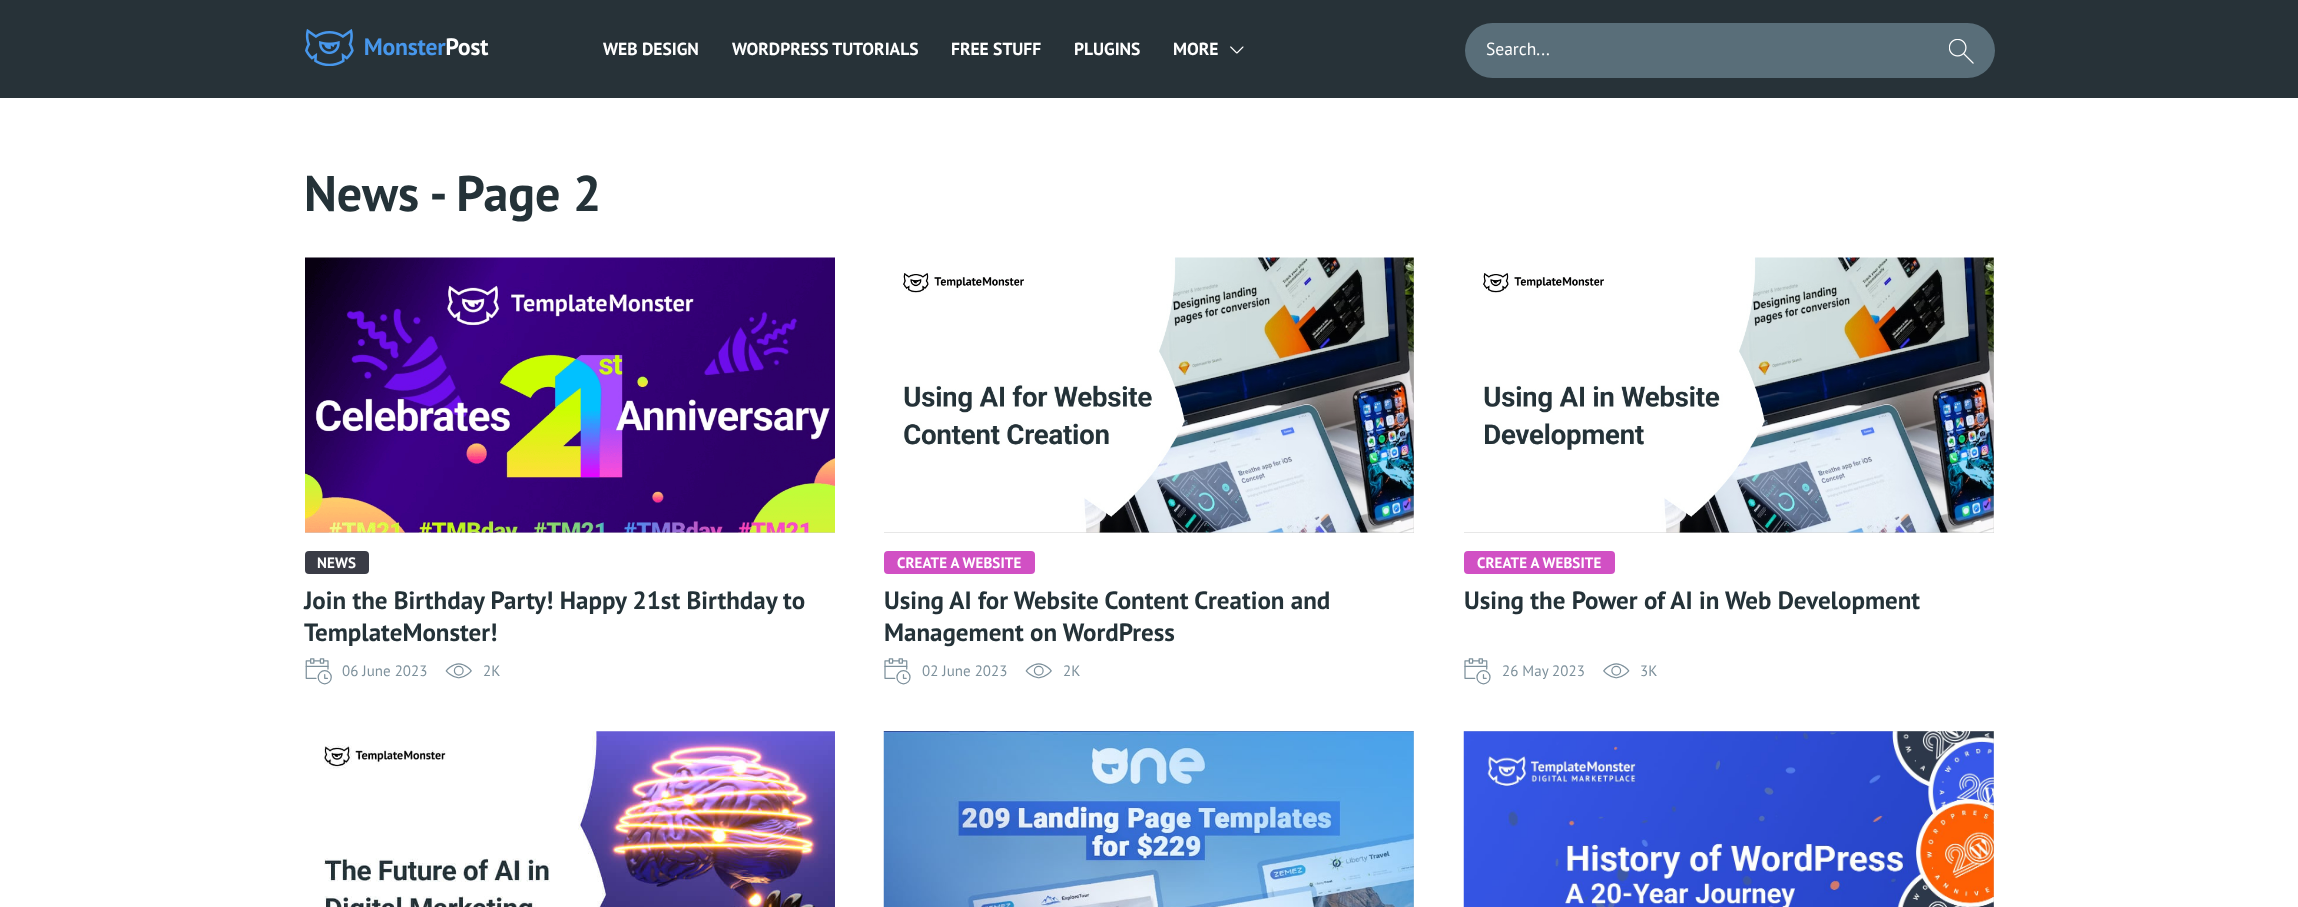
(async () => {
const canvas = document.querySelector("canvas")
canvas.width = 2298
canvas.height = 907
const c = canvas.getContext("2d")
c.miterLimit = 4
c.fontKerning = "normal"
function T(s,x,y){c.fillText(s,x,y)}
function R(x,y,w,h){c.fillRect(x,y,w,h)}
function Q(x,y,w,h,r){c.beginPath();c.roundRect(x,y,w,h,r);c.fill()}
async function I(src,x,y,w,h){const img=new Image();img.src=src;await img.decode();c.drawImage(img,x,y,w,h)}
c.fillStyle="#fff"
R(0,0,2298,907)
c.fillStyle="#273238"
R(0,0,2298,98)
await I("1.png",305,29,49,37)
await I("2.png",365,38,124,18)
c.font="bold 17.5px PT Sans"
c.fillStyle="#fff"
T("WEB DESIGN",603,55)
T("WORDPRESS TUTORIALS",732,55)
T("FREE STUFF",951,55)
T("PLUGINS",1074,55)
T("MORE",1173,55)
await I("3.png",1230,46,14,8)
c.fillStyle="#596e79"
Q(1465,23,530,55,27.5)
c.font="17.5px PT Sans"
c.fillStyle="#fff"
T("Search...",1486,55)
await I("4.png",1949,39,25,25)
c.font="bold 50px PT Sans"
c.fillStyle="#243238"
T("News - Page 2",304,211)
c.fillStyle="#cecece"
R(305,532,530,1)
await I("5.png",305,257,530,276)
c.fillStyle="#3a3c46"
Q(305,551,64,23,4)
c.letterSpacing="0.1px"
c.font="bold 15px PT Sans"
c.fillStyle="#fff"
T("NEWS",317,568)
c.letterSpacing="0px"
c.font="bold 25px PT Sans"
c.fillStyle="#243238"
T("Join the Birthday Party! Happy 21st Birthday to",304,609)
T("TemplateMonster!",304,641)
await I("6.png",305,658,27,27)
c.font="15px PT Sans"
c.fillStyle="#7e919c"
T("06 June 2023",342,676)
await I("7.png",445,663,27,16)
T("2K",483,676)
c.fillStyle="#cecece"
R(884,258,530,275)
await I("8.png",884,257,530,276)
c.fillStyle="#d150c4"
Q(884,551,151,23,4)
c.letterSpacing="0.1px"
c.font="bold 15px PT Sans"
c.fillStyle="#fff"
T("CREATE A WEBSITE",897,568)
c.letterSpacing="0px"
c.font="bold 25px PT Sans"
c.fillStyle="#243238"
T("Using AI for Website Content Creation and",884,609)
T("Management on WordPress",884,641)
await I("9.png",884,658,27,27)
c.font="15px PT Sans"
c.fillStyle="#7e919c"
T("02 June 2023",922,676)
await I("7.png",1025,663,27,16)
T("2K",1063,676)
c.fillStyle="#cecece"
R(1464,258,530,275)
await I("10.png",1464,257,530,276)
c.fillStyle="#d150c4"
Q(1464,551,151,23,4)
c.letterSpacing="0.1px"
c.font="bold 15px PT Sans"
c.fillStyle="#fff"
T("CREATE A WEBSITE",1477,568)
c.letterSpacing="0px"
c.font="bold 25px PT Sans"
c.fillStyle="#243238"
T("Using the Power of AI in Web Development",1464,609)
await I("9.png",1464,658,27,27)
c.font="15px PT Sans"
c.fillStyle="#7e919c"
T("26 May 2023",1502,676)
await I("11.png",1603,663,27,16)
T("3K",1640,676)
await I("12.png",305,731,530,176)
c.fillStyle="#cecece"
R(884,731,530,176)
await I("13.png",883,731,531,176)
R(1464,731,530,176)
await I("14.png",1463,731,531,176)
})()
